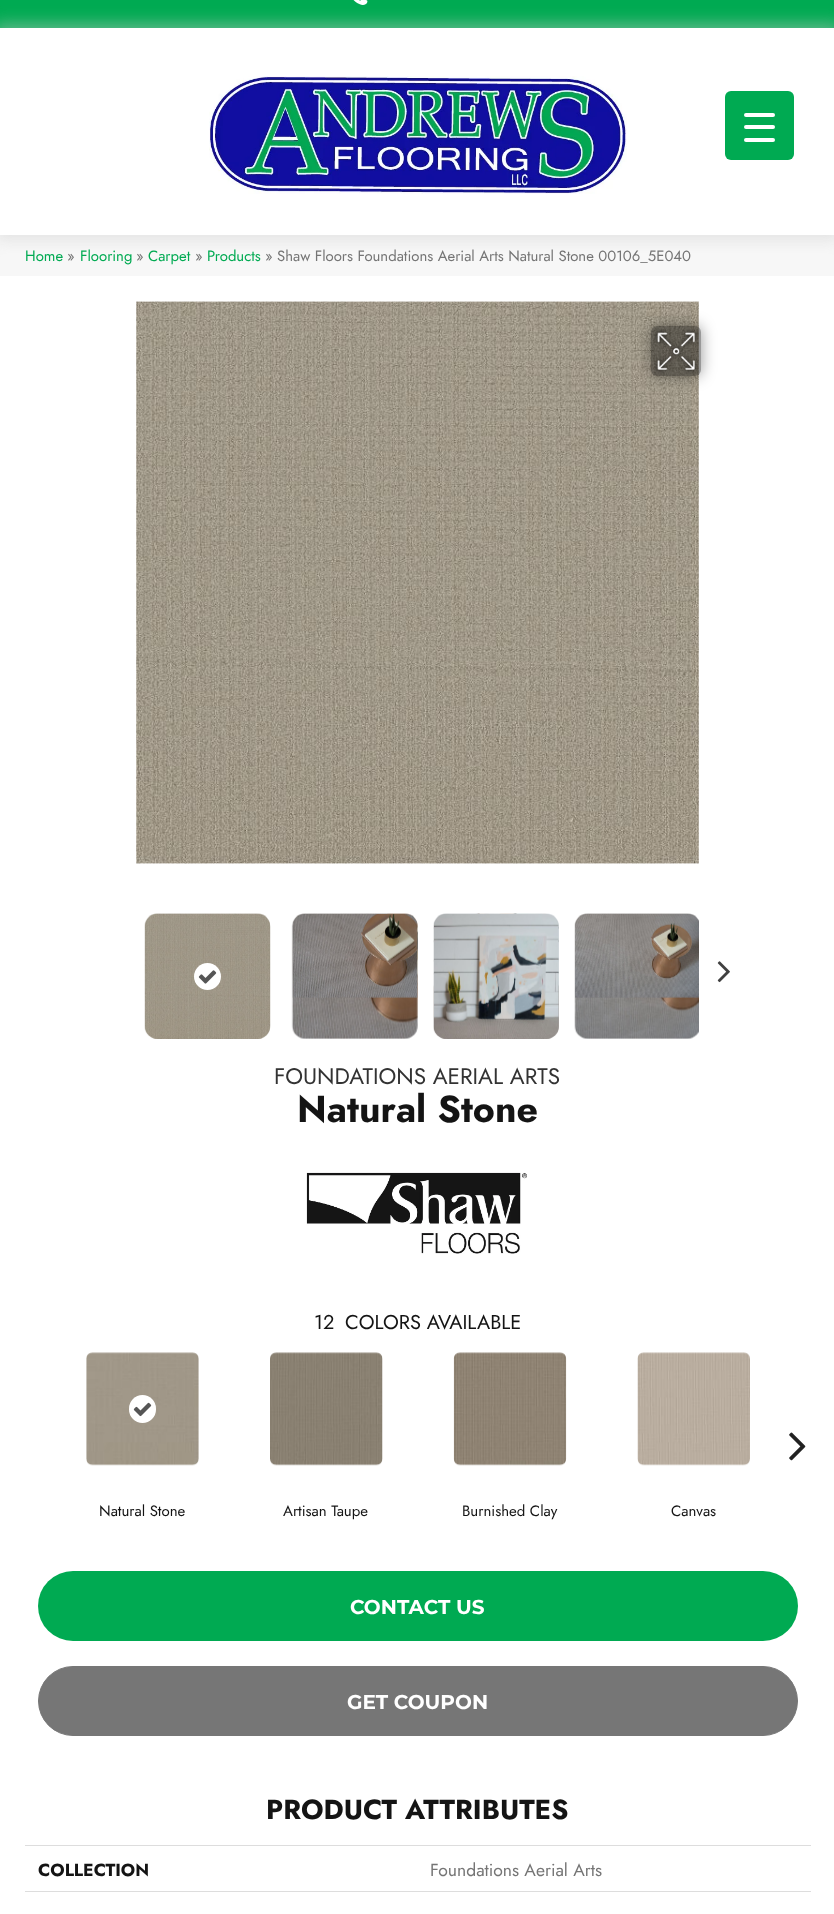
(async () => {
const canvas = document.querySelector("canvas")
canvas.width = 834
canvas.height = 1914
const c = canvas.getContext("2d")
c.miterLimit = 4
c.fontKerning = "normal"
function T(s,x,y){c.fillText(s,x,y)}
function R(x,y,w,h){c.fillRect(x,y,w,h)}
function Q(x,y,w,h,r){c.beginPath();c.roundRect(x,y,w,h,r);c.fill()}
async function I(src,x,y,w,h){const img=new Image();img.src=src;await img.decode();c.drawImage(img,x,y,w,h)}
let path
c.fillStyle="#fff"
R(0,0,834,1914)
c.fillStyle="#00aa52"
R(0,0,834,28)
await I("1.png",353,0,15,5)
c.fillStyle="#f7f7f7"
R(0,235,834,41)
c.fillStyle="#cccccc73"
c.filter="blur(7.5px)"
c.beginPath()
c.rect(-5,23,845,217)
c.fill()
c.filter="none"
c.fillStyle="#fff"
R(0,28,834,207)
c.fillStyle="#00aa52"
Q(725,91,69,69,6)
c.fillStyle="#fff"
Q(744,125,31,4,2)
Q(744,113,31,4,2)
Q(744,138,31,4,2)
await I("2.png",209,76,418,118)
c.font="14.9px Jost"
c.fillStyle="#00aa52"
T("Home",25,261)
c.fillStyle="#757575"
T("»",67,261)
c.fillStyle="#00aa52"
T("Flooring",80,261)
c.fillStyle="#757575"
T("»",136,261)
c.fillStyle="#00aa52"
T("Carpet",148,261)
c.fillStyle="#757575"
T("»",195,261)
c.fillStyle="#00aa52"
T("Products",207,261)
c.fillStyle="#757575"
T("» Shaw Floors Foundations Aerial Arts Natural Stone 00106_5E040",265,261)
await I("3.png",136,301,563,563)
c.save()
path = new Path2D("M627 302h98v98h-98zm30 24h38c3.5 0 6 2.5 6 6v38c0 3.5-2.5 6-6 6h-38c-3.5 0-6-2.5-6-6v-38c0-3.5 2.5-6 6-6z")
c.clip(path,"evenodd")
c.fillStyle="#00000069"
c.filter="blur(7.5px)"
c.beginPath()
c.roundRect(651,326,50,50,6)
c.fill()
c.filter="none"
c.restore()
c.fillStyle="#00000066"
Q(651,326,50,50,6)
await I("4.png",654,329,45,45)
await I("5.png",144,913,127,126)
await I("6.png",145,914,125,125)
c.fillStyle="#fff"
c.beginPath()
c.arc(207.5,976.5,13.5,0,7)
c.fill()
await I("7.png",198,970,19,14)
await I("8.png",291,913,127,126)
await I("9.png",292,914,126,84)
await I("10.png",433,913,126,126)
await I("11.png",433,914,126,125)
await I("12.png",574,913,125,126)
await I("13.png",575,914,124,84)
await I("14.png",717,961,13,22)
c.font="22.5px Jost"
c.fillStyle="#333"
T("FOUNDATIONS AERIAL ARTS",274,1084)
c.font="bold 37.5px Jost"
c.fillStyle="#141414"
T("Natural Stone",297,1122)
await I("15.png",306,1172,221,82)
c.font="20px Jost"
T("12",314,1329)
T("COLORS AVAILABLE",345,1329)
await I("16.png",789,1432,17,29)
await I("17.png",86,1352,113,114)
c.fillStyle="#fff"
Q(129,1395,27,28,13.5)
await I("18.png",133,1402,19,15)
c.font="15px Jost"
c.fillStyle="#141414"
T("Natural Stone",99,1516)
await I("19.png",270,1352,113,114)
T("Artisan Taupe",283,1516)
await I("20.png",453,1352,114,114)
T("Burnished Clay",462,1516)
await I("21.png",637,1352,113,114)
T("Canvas",671,1516)
c.fillStyle="#00aa52"
Q(38,1571,760,70,35)
c.font="100 20px Montserrat"
c.fillStyle="#fff"
T("CONTACT US",350,1614)
c.fillStyle="#767676"
c.beginPath()
c.roundRect(38.5,1666.5,759,69,34.5)
c.fill()
c.strokeStyle="#767676"
c.stroke()
c.fillStyle="#fff"
T("GET COUPON",347,1709)
c.font="bold 27.5px Jost"
c.fillStyle="#141414"
T("PRODUCT ATTRIBUTES",266,1819)
c.font="bold 17.5px Jost"
T("COLLECTION",38,1876)
c.fillStyle="#ddd"
R(25,1845,786,1)
c.font="17.5px Jost"
c.fillStyle="#757575"
T("Foundations Aerial Arts",430,1876)
c.fillStyle="#ddd"
R(25,1891,786,1)
})()
